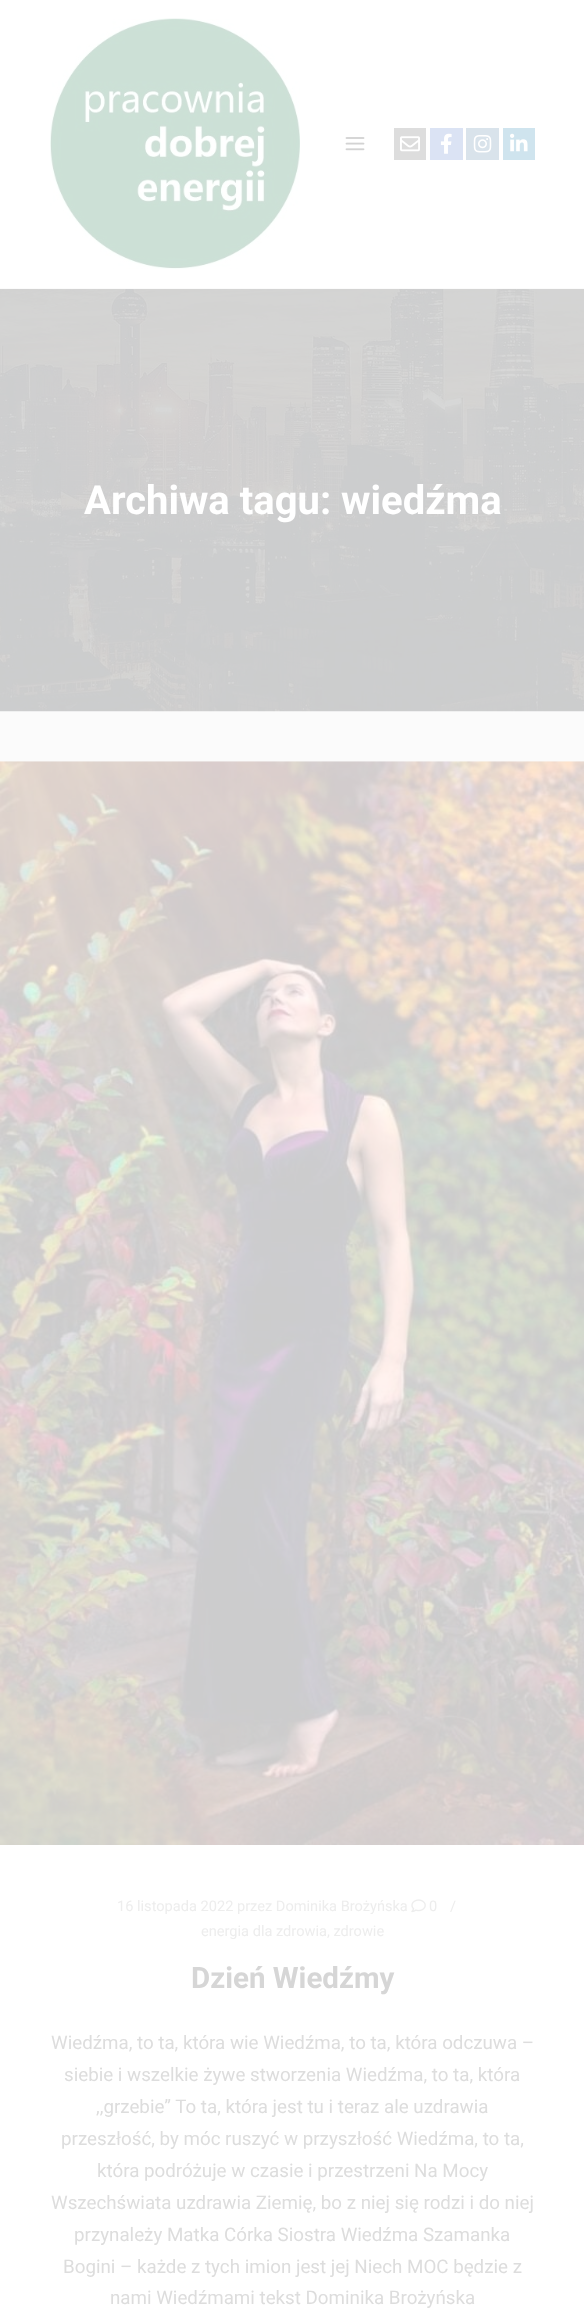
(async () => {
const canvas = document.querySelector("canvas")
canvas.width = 584
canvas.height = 2318
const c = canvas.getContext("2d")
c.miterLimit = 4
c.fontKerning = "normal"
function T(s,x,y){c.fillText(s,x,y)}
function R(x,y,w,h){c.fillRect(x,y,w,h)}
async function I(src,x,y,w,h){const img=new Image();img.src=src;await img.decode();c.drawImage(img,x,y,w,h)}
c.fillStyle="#fbfbfb"
R(0,0,584,2318)
c.fillStyle="#fff"
R(0,0,584,288)
await I("1.png",50,18,250,251)
await I("2.png",345,137,20,14)
c.fillStyle="#ddd"
R(394,128,32,32)
await I("3.png",400,136,20,16)
c.fillStyle="#dbe3f4"
R(430,128,33,32)
await I("4.png",440,133,12,21)
c.fillStyle="#d9e3eb"
R(466,128,33,32)
await I("5.png",473,134,19,19)
c.fillStyle="#cfe4ee"
R(503,128,32,32)
await I("6.png",510,133,18,19)
await I("7.png",0,289,584,423)
c.font="bold 40px Roboto"
c.fillStyle="#fff"
T("Archiwa tagu: wiedźma",84,514)
await I("8.png",0,761,584,1084)
R(0,1845,584,473)
c.font="14.6px Roboto"
c.fillStyle="#ededed"
T("16 listopada 2022 przez Dominika Brożyńska",117,1911)
await I("9.png",411,1899,15,14)
T("0",429,1911)
T("/",450,1911)
T("energia dla zdrowia, zdrowie",201,1936)
c.font="bold 29.5px Roboto"
c.fillStyle="#d6d6d6"
T("Dzień Wiedźmy",191,1988)
c.font="18.75px Roboto"
c.fillStyle="#ddd"
T("Wiedźma, to ta, która wie Wiedźma, to ta, która odczuwa –",51,2049)
T("siebie i wszelkie żywe stworzenia Wiedźma, to ta, która",64,2081)
T(",,grzebie” To ta, która jest tu i teraz ale uzdrawia",96,2113)
T("przeszłość, by móc ruszyć w przyszłość Wiedźma, to ta,",61,2145)
T("która podróżuje w czasie i przestrzeni Na Mocy",97,2177)
T("Wszechświata uzdrawia Ziemię, bo z niej się rodzi i do niej",51,2209)
T("przynależy Matka Córka Siostra Wiedźma Szamanka",74,2241)
T("Bogini – każde z tych imion jest jej Niech MOC będzie z",63,2273)
T("nami Wiedźmami tekst Dominika Brożyńska",110,2304)
})()
